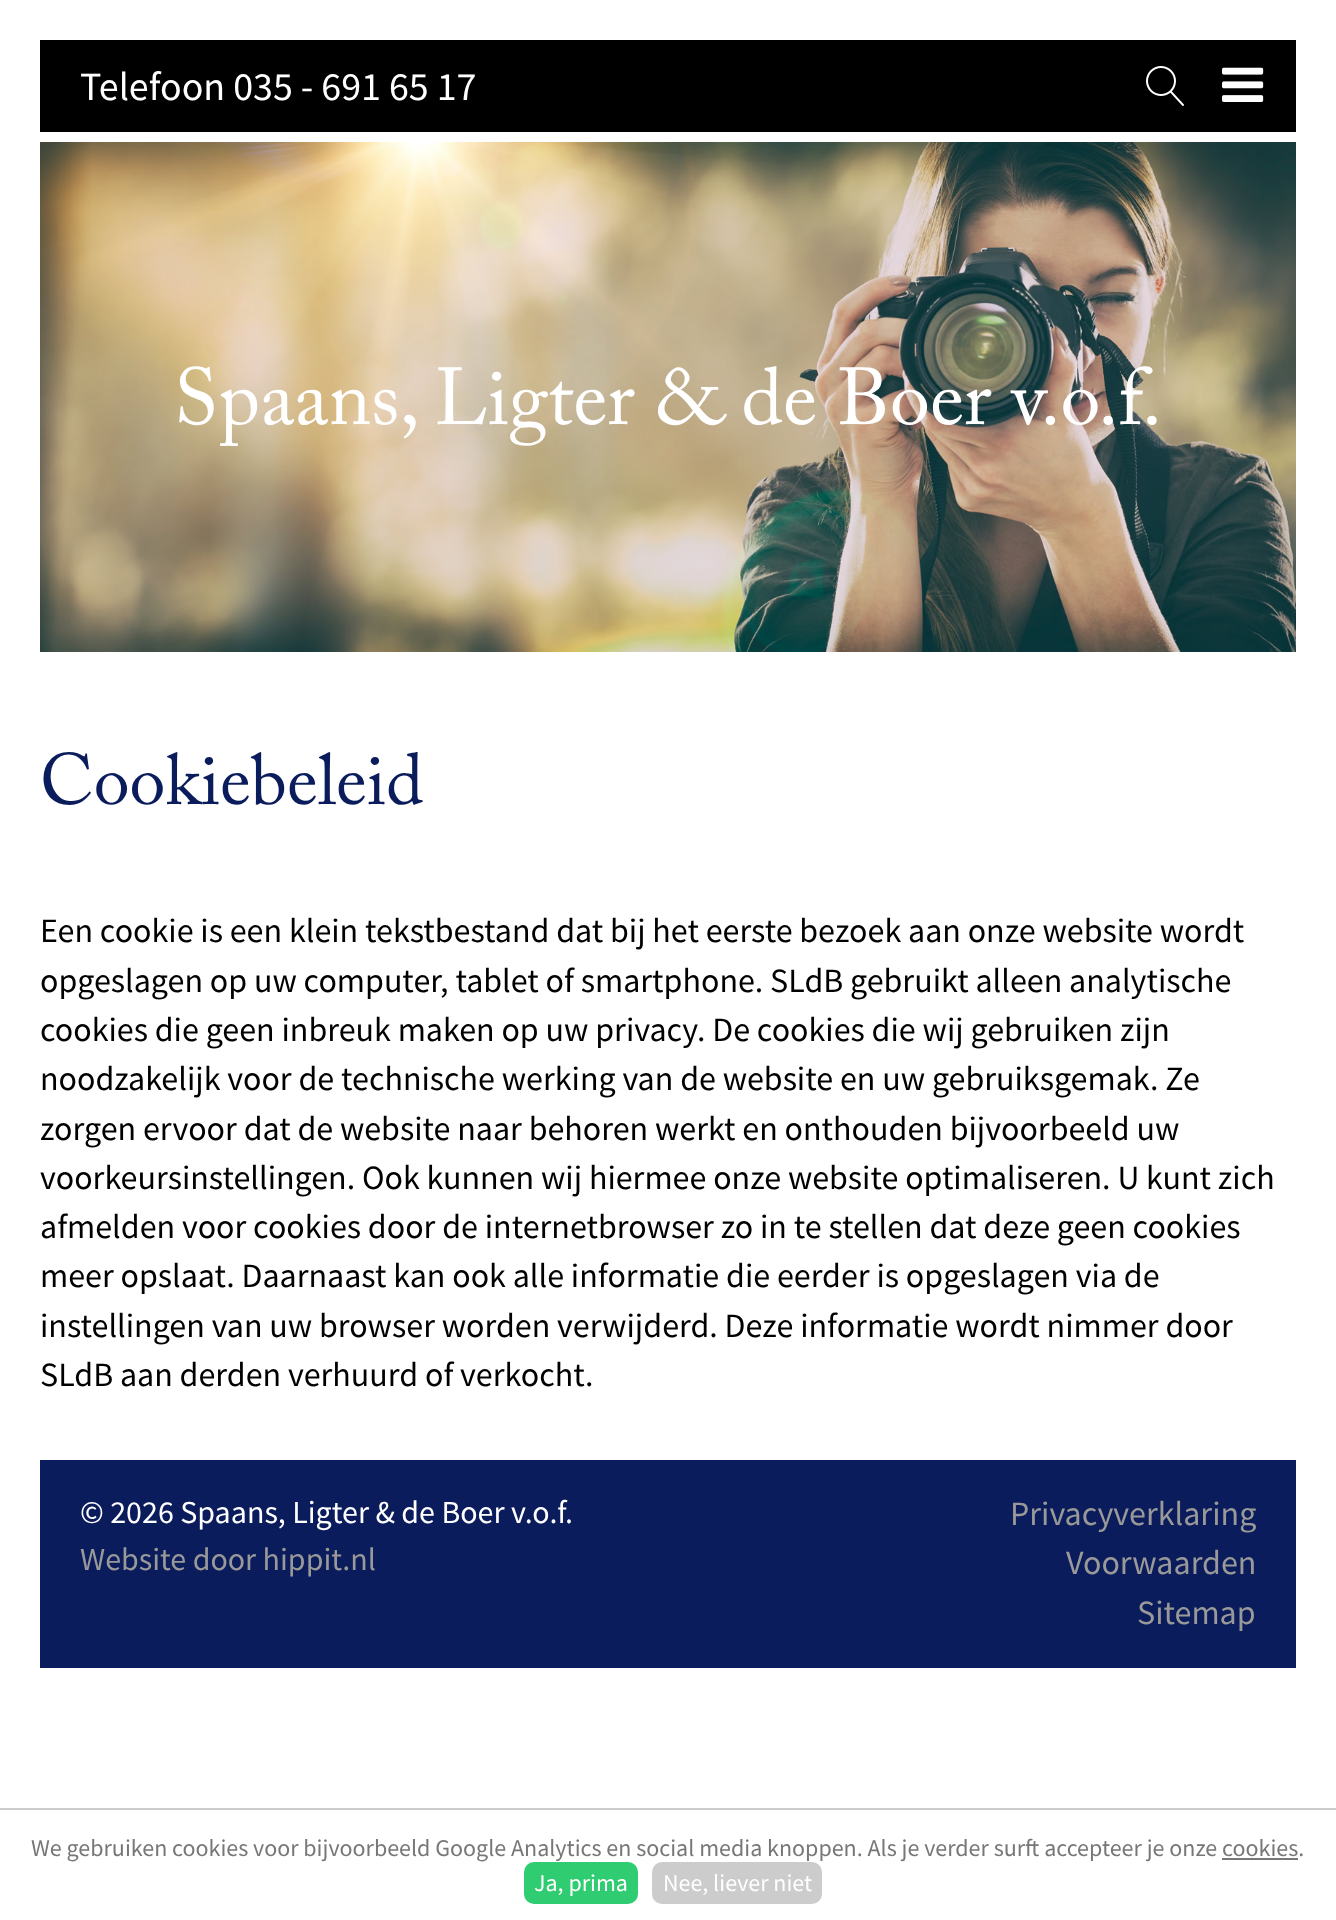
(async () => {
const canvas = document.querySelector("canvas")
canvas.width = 1336
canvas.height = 1920
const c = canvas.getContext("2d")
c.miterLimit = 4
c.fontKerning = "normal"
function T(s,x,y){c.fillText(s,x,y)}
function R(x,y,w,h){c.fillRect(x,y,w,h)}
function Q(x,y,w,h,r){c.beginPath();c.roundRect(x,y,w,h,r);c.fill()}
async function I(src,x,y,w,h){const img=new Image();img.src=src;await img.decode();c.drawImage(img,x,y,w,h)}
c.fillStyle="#fff"
R(0,0,1336,1920)
await I("1.png",40,142,1256,510)
c.fillStyle="#000"
R(40,40,1256,92)
c.font="40px Source Sans Pro"
c.fillStyle="#fff"
T("Telefoon 035 - 691 65 17",80,100)
await I("2.png",1146,66,38,40)
await I("3.png",1222,67,42,35)
c.font="80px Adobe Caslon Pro"
T("Spaans, Ligter & de Boer v.o.f.",174,424)
c.font="72px Adobe Caslon Pro"
c.fillStyle="#0b1c5c"
T("Cookiebeleid",40,804)
c.font="34px Source Sans Pro"
c.fillStyle="#000"
T("Een cookie is een klein tekstbestand dat bij het eerste bezoek aan onze website wordt",40,942)
T("opgeslagen op uw computer, tablet of smartphone. SLdB gebruikt alleen analytische",40,992)
T("cookies die geen inbreuk maken op uw privacy. De cookies die wij gebruiken zijn",40,1041)
T("noodzakelijk voor de technische werking van de website en uw gebruiksgemak. Ze",40,1090)
T("zorgen ervoor dat de website naar behoren werkt en onthouden bijvoorbeeld uw",40,1140)
T("voorkeursinstellingen. Ook kunnen wij hiermee onze website optimaliseren. U kunt zich",40,1189)
T("afmelden voor cookies door de internetbrowser zo in te stellen dat deze geen cookies",40,1238)
T("meer opslaat. Daarnaast kan ook alle informatie die eerder is opgeslagen via de",40,1287)
T("instellingen van uw browser worden verwijderd. Deze informatie wordt nimmer door",40,1337)
T("SLdB aan derden verhuurd of verkocht.",40,1386)
c.fillStyle="#0b1c5c"
R(40,1460,1256,208)
c.font="32px Source Sans Pro"
c.fillStyle="#fff"
T("© 2026 Spaans, Ligter & de Boer v.o.f.",80,1523)
c.fillStyle="#999"
T("Website door hippit.nl",80,1570)
c.font="34px Source Sans Pro"
T("Privacyverklaring",1010,1525)
T("Voorwaarden",1066,1574)
T("Sitemap",1137,1624)
c.fillStyle="#ccc"
R(0,1808,1336,2)
c.font="24px Source Sans Pro"
c.fillStyle="#777"
T("We gebruiken cookies voor bijvoorbeeld Google Analytics en social media knoppen. Als je verder surft accepteer je onze cookies.",31,1856)
R(1222,1858,76,2)
c.fillStyle="#2fcc71"
Q(524,1862,114,42,10)
c.fillStyle="#fff"
T("Ja, prima",534,1891)
c.fillStyle="#ccc"
Q(652,1862,170,42,10)
c.fillStyle="#fff"
T("Nee, liever niet",663,1891)
})()
